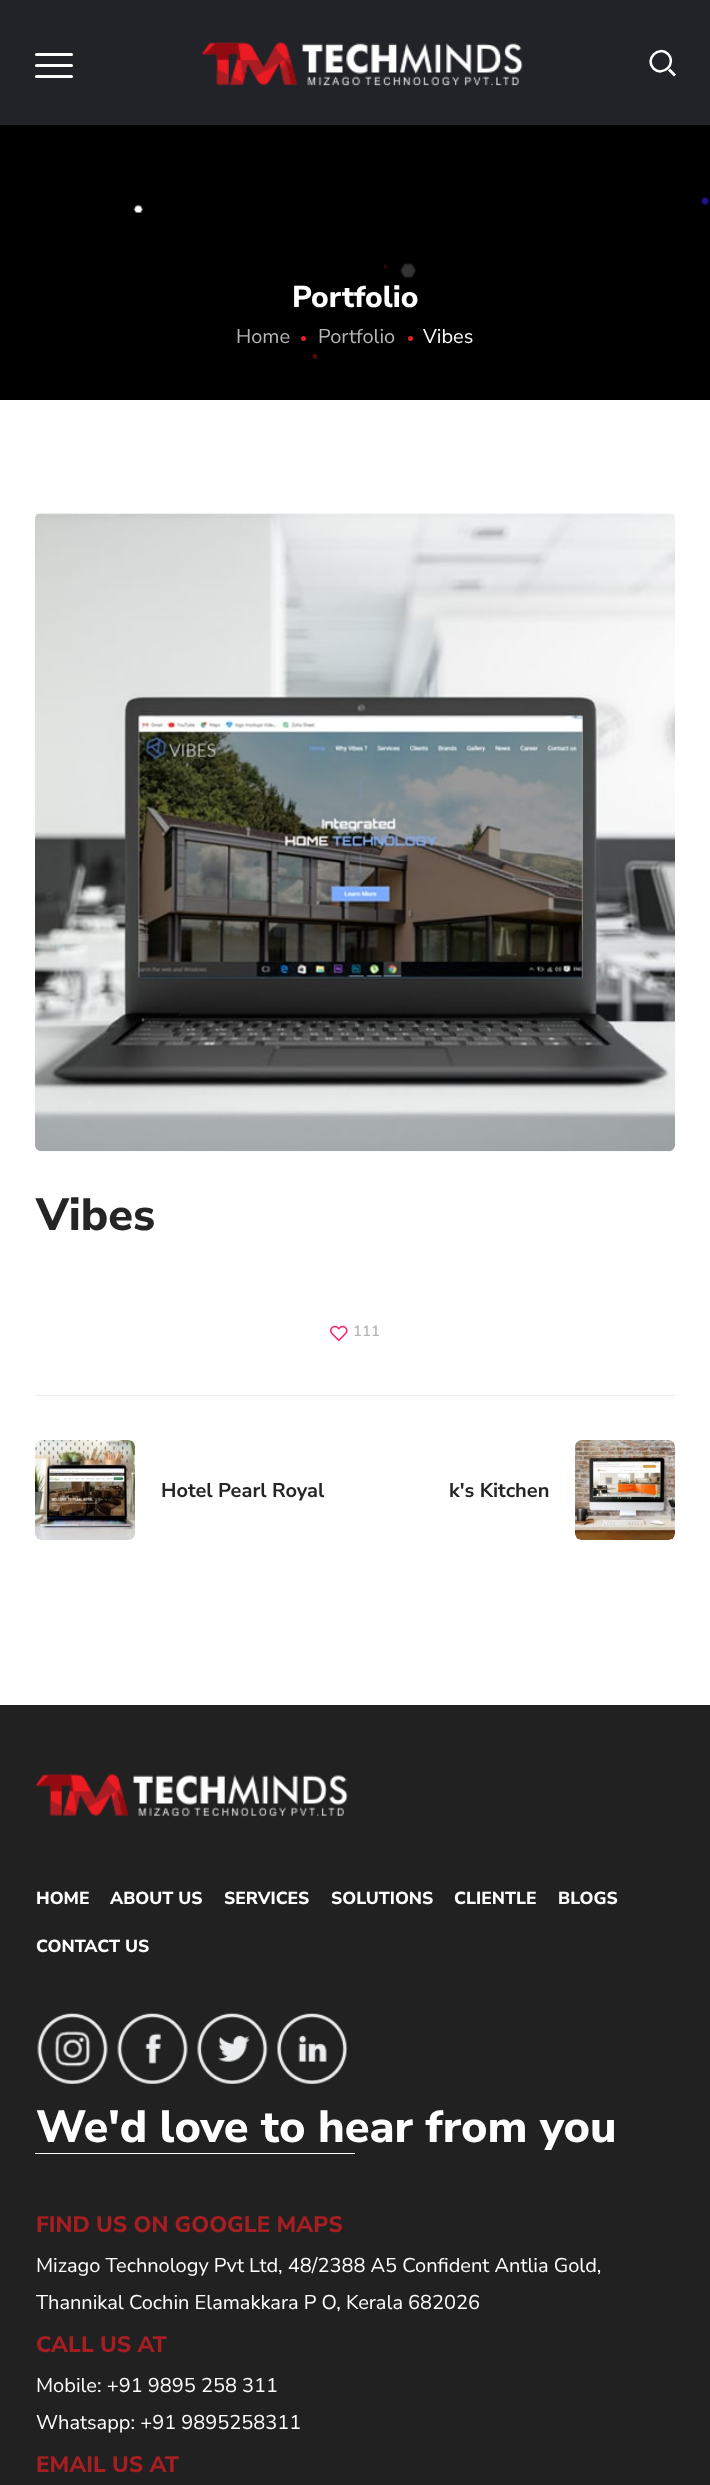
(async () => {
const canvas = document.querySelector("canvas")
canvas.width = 710
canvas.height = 2485
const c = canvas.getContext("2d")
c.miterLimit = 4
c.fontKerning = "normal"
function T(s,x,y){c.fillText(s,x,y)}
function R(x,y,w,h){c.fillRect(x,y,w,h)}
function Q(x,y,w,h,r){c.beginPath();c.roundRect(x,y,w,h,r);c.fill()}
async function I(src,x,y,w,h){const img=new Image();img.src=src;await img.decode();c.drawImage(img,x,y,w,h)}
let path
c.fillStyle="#fff"
R(0,0,710,2485)
c.fillStyle="#222328"
R(0,0,710,125)
c.fillStyle="#fff"
Q(35,53,38,3,1.5)
Q(35,64,38,3,1.5)
Q(35,75,38,3,1.5)
await I("1.png",201,42,322,44)
path = new Path2D("M668 54c9 9.5-5 23.5-14.5 14.5c-9-9.5 5-23.5 14.5-14.5z")
c.strokeStyle="#fff"
c.lineWidth=2.5
c.stroke(path)
path = new Path2D("M668 70.5l2-2l6 6l-2 2z")
c.fill(path)
c.fillStyle="#000"
R(0,125,710,275)
await I("2.png",133,197,576,162)
c.font="800 30px Nunito Sans"
c.fillStyle="#fff"
T("Portfolio",292,307)
c.font="20px Nunito Sans"
c.fillStyle="#b6b6b6"
T("Home",236,343)
c.fillStyle="#e61e26"
c.beginPath()
c.arc(303.5,338.5,2.5,0,7)
c.fill()
c.fillStyle="#b6b6b6"
T("Portfolio",318,343)
c.fillStyle="#e61e26"
c.beginPath()
c.arc(410.5,338.5,2.5,0,7)
c.fill()
c.fillStyle="#fff"
T("Vibes",423,343)
await I("3.png",35,513,640,639)
c.font="800 45px Nunito Sans"
c.fillStyle="#252525"
T("Vibes",36,1230)
c.fillStyle="#ededed"
R(35,1395,640,1)
await I("4.png",330,1325,18,17)
c.font="600 15px Nunito Sans"
c.fillStyle="#b6b6b6"
T("111",353,1336)
await I("5.png",35,1440,100,100)
c.font="bold 20px Nunito Sans"
c.fillStyle="#252525"
T("Hotel Pearl Royal",161,1497)
T("k's Kitchen",449,1497)
await I("6.png",575,1440,100,100)
c.fillStyle="#212121"
R(0,1705,710,780)
await I("7.png",35,1774,313,43)
c.font="800 17.5px Nunito Sans"
c.fillStyle="#fff"
T("HOME",36,1904)
T("ABOUT US",110,1904)
T("SERVICES",224,1904)
T("SOLUTIONS",331,1904)
T("CLIENTLE",454,1904)
T("BLOGS",558,1904)
T("CONTACT US",36,1952)
await I("8.png",37,2013,71,71)
await I("9.png",117,2013,71,71)
await I("10.png",197,2013,71,71)
await I("11.png",277,2013,71,71)
c.font="800 45px Nunito Sans"
T("We'd love to hear from you",36,2142)
R(35,2153,320,1)
c.font="800 22.5px Nunito Sans"
c.fillStyle="#a41e22"
T("FIND US ON GOOGLE MAPS",36,2232)
c.font="20px Nunito Sans"
c.fillStyle="#fff"
T("Mizago Technology Pvt Ltd, 48/2388 A5 Confident Antlia Gold,",36,2272)
T("Thannikal Cochin Elamakkara P O, Kerala 682026",36,2309)
c.font="800 22.5px Nunito Sans"
c.fillStyle="#a41e22"
T("CALL US AT",36,2352)
c.font="20px Nunito Sans"
c.fillStyle="#fff"
T("Mobile: +91 9895 258 311",36,2392)
T("Whatsapp: +91 9895258311",36,2429)
c.font="800 22.5px Nunito Sans"
c.fillStyle="#a41e22"
T("EMAIL US AT",36,2472)
})()
